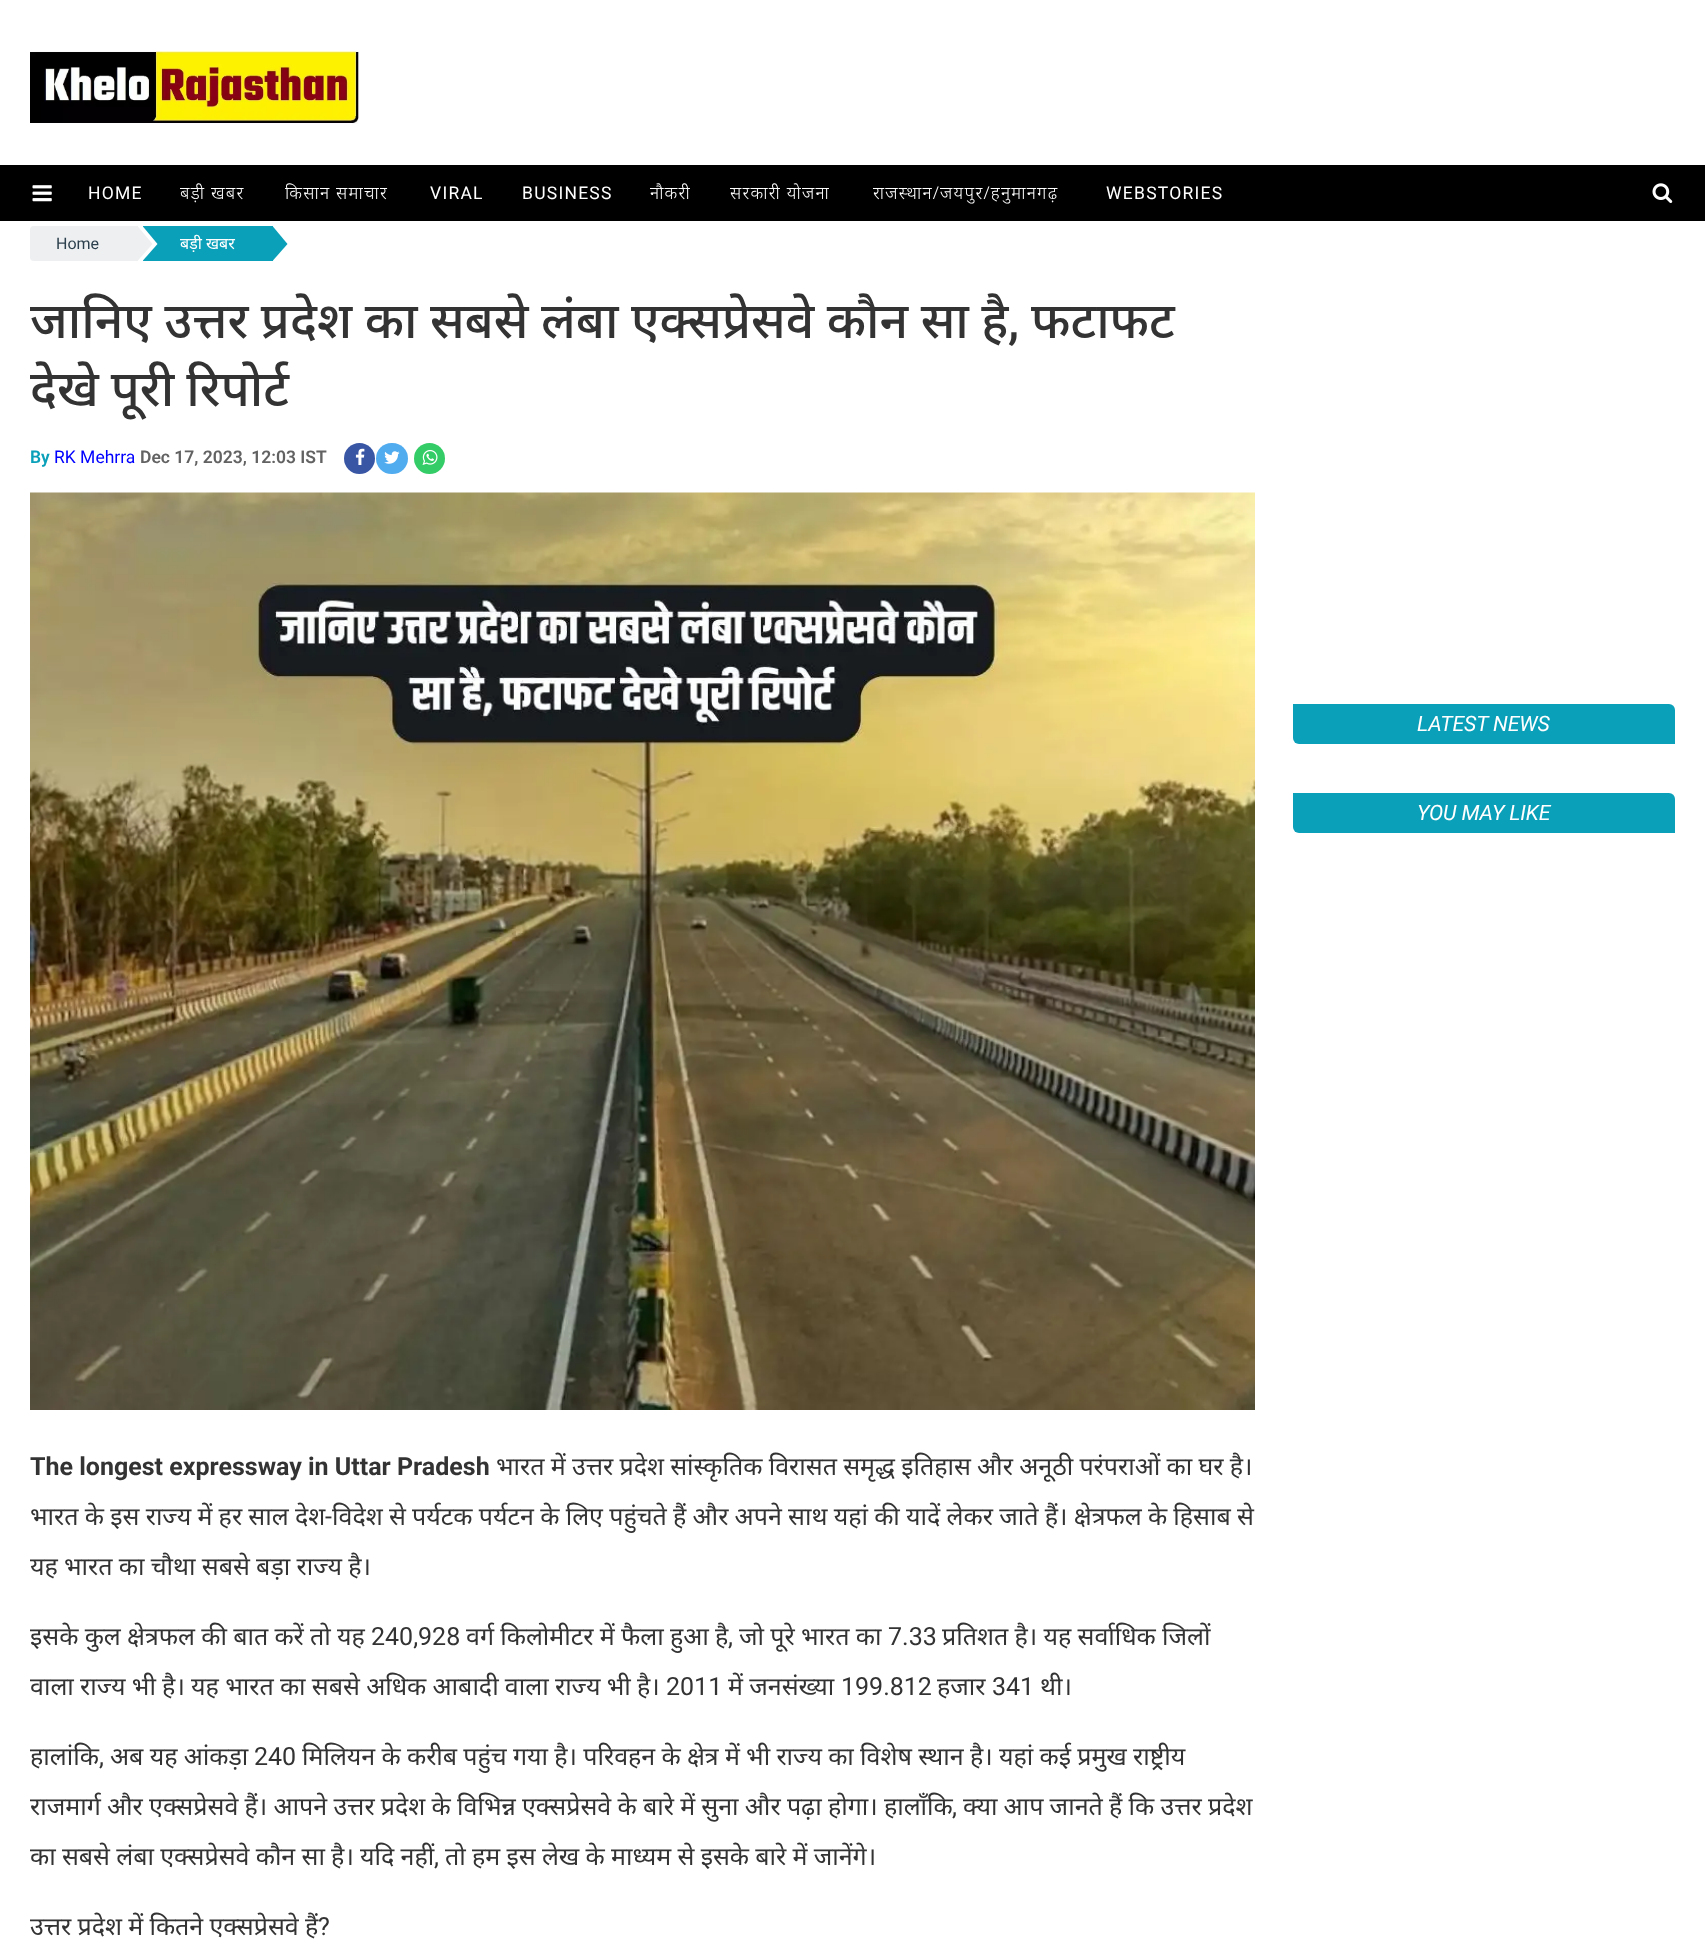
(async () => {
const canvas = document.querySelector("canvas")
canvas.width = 1705
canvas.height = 1949
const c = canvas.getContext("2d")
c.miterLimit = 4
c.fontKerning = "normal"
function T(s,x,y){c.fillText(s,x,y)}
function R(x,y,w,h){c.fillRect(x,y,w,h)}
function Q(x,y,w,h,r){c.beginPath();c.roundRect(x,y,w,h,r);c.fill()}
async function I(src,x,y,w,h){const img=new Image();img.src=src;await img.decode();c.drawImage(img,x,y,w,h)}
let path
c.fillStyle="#fff"
R(0,0,1705,1949)
await I("1.png",30,51,329,73)
c.fillStyle="#000"
R(0,165,1705,56)
await I("2.png",32,185,20,17)
c.letterSpacing="1.25px"
c.font="17.5px Roboto"
c.fillStyle="#fff"
T("HOME",88,199)
c.font="300 17.5px Noto Sans"
T("बड़ी खबर",180,199)
T("किसान समाचार",285,199)
c.font="17.5px Roboto"
T("VIRAL",430,199)
T("BUSINESS",522,199)
c.font="300 17.5px Noto Sans"
T("नौकरी",650,199)
T("सरकारी योजना",730,199)
T("राजस्थान/जयपुर/हनुमानगढ़",873,199)
c.font="17.5px Roboto"
T("WEBSTORIES",1106,199)
await I("3.png",1652,183,21,20)
c.fillStyle="#edeff0"
c.beginPath()
c.roundRect(30,226,108,35,[4,0,0,4])
c.fill()
c.letterSpacing="0px"
c.font="16px Roboto"
c.fillStyle="#2c3f4c"
T("Home",56,249)
c.fillStyle="#0ba0b9"
R(143,226,130,35)
c.fillStyle="#fff"
path = new Path2D("M142.5 261v-35l15 18z")
c.fill(path)
c.fillStyle="#edeff0"
path = new Path2D("M137.5 261v-35l15 18z")
c.fill(path)
c.font="16px Noto Sans"
c.fillStyle="#fff"
T("बड़ी खबर",180,249)
c.fillStyle="#0ba0b9"
path = new Path2D("M272.5 261v-35l15 18z")
c.fill(path)
c.wordSpacing="-0.5px"
c.font="500 50px Noto Sans"
c.fillStyle="#333"
T("जानिए उत्तर प्रदेश का सबसे लंबा एक्सप्रेसवे कौन सा है",30,338)
c.wordSpacing="0px"
c.font="500 50px Roboto"
T(",",1008,338)
c.font="500 50px Noto Sans"
T("फटाफट",1031,338)
c.wordSpacing="-1px"
T("देखे पूरी रिपोर्ट",30,406)
c.wordSpacing="0px"
c.font="600 17.5px Roboto"
c.fillStyle="#0ba0b9"
T("By",30,463)
c.font="17.5px Roboto"
c.fillStyle="#00f"
T("RK Mehrra",54,463)
c.font="600 17.5px Roboto"
c.fillStyle="#626262"
T("Dec 17, 2023, 12:03 IST",140,463)
c.fillStyle="#3956a5"
c.beginPath()
c.arc(359.5,458.5,15.5,0,7)
c.fill()
await I("4.png",355,448,10,17)
c.fillStyle="#51acef"
Q(376,443,32,31,15.5)
await I("5.png",384,451,16,13)
c.fillStyle="#3c6"
c.beginPath()
c.arc(429.5,458.5,15.5,0,7)
c.fill()
await I("6.png",422,449,16,16)
await I("7.png",30,492,1225,918)
c.font="bold 25px Roboto"
c.fillStyle="#333"
T("The longest expressway in Uttar Pradesh",30,1475)
c.wordSpacing="-0.25px"
c.font="25px Noto Sans"
T("भारत में उत्तर प्रदेश सांस्कृतिक विरासत समृद्ध इतिहास और अनूठी परंपराओं का घर है।",496,1475)
T("भारत के इस राज्य में हर साल देश",30,1525)
c.wordSpacing="0px"
c.font="25px Roboto"
T("-",325,1525)
c.wordSpacing="-0.25px"
c.font="25px Noto Sans"
T("विदेश से पर्यटक पर्यटन के लिए पहुंचते हैं और अपने साथ यहां की यादें लेकर जाते हैं। क्षेत्रफल के हिसाब से",332,1525)
T("यह भारत का चौथा सबसे बड़ा राज्य है।",30,1575)
T("इसके कुल क्षेत्रफल की बात करें तो यह",30,1645)
c.wordSpacing="0px"
c.font="25px Roboto"
T("240,928",371,1645)
c.wordSpacing="-0.25px"
c.font="25px Noto Sans"
T("वर्ग किलोमीटर में फैला हुआ है",466,1645)
c.wordSpacing="0px"
c.font="25px Roboto"
T(",",728,1645)
c.wordSpacing="-0.25px"
c.font="25px Noto Sans"
T("जो पूरे भारत का",739,1645)
c.wordSpacing="0px"
c.font="25px Roboto"
T("7.33",888,1645)
c.wordSpacing="-0.25px"
c.font="25px Noto Sans"
T("प्रतिशत है। यह सर्वाधिक जिलों",942,1645)
T("वाला राज्य भी है। यह भारत का सबसे अधिक आबादी वाला राज्य भी है।",30,1695)
c.wordSpacing="0px"
c.font="25px Roboto"
T("2011",666,1695)
c.wordSpacing="-0.25px"
c.font="25px Noto Sans"
T("में जनसंख्या",728,1695)
c.wordSpacing="0px"
c.font="25px Roboto"
T("199.812",841,1695)
c.font="25px Noto Sans"
T("हजार",937,1695)
c.font="25px Roboto"
T("341",992,1695)
c.font="25px Noto Sans"
T("थी।",1040,1695)
T("हालांकि",30,1765)
c.font="25px Roboto"
T(",",99,1765)
c.wordSpacing="-0.25px"
c.font="25px Noto Sans"
T("अब यह आंकड़ा",110,1765)
c.wordSpacing="0px"
c.font="25px Roboto"
T("240",254,1765)
c.wordSpacing="-0.25px"
c.font="25px Noto Sans"
T("मिलियन के करीब पहुंच गया है। परिवहन के क्षेत्र में भी राज्य का विशेष स्थान है। यहां कई प्रमुख राष्ट्रीय",302,1765)
T("राजमार्ग और एक्सप्रेसवे हैं। आपने उत्तर प्रदेश के विभिन्न एक्सप्रेसवे के बारे में सुना और पढ़ा होगा। हालाँकि",30,1815)
c.wordSpacing="0px"
c.font="25px Roboto"
T(",",952,1815)
c.wordSpacing="-0.25px"
c.font="25px Noto Sans"
T("क्या आप जानते हैं कि उत्तर प्रदेश",963,1815)
T("का सबसे लंबा एक्सप्रेसवे कौन सा है। यदि नहीं",30,1865)
c.wordSpacing="0px"
c.font="25px Roboto"
T(",",434,1865)
c.wordSpacing="-0.25px"
c.font="25px Noto Sans"
T("तो हम इस लेख के माध्यम से इसके बारे में जानेंगे।",445,1865)
T("उत्तर प्रदेश में कितने एक्सप्रेसवे हैं",30,1935)
c.wordSpacing="0px"
c.font="25px Roboto"
T("?",318,1935)
c.fillStyle="#0ba0b9"
c.beginPath()
c.roundRect(1293,704,382,40,[0,6,0,6])
c.fill()
c.letterSpacing="-0.1px"
c.font="italic 21.25px Roboto"
c.fillStyle="#fff"
T("LATEST NEWS",1417,731)
c.fillStyle="#0ba0b9"
c.beginPath()
c.roundRect(1293,793,382,40,[0,6,0,6])
c.fill()
c.fillStyle="#fff"
T("YOU MAY LIKE",1417,820)
})()
